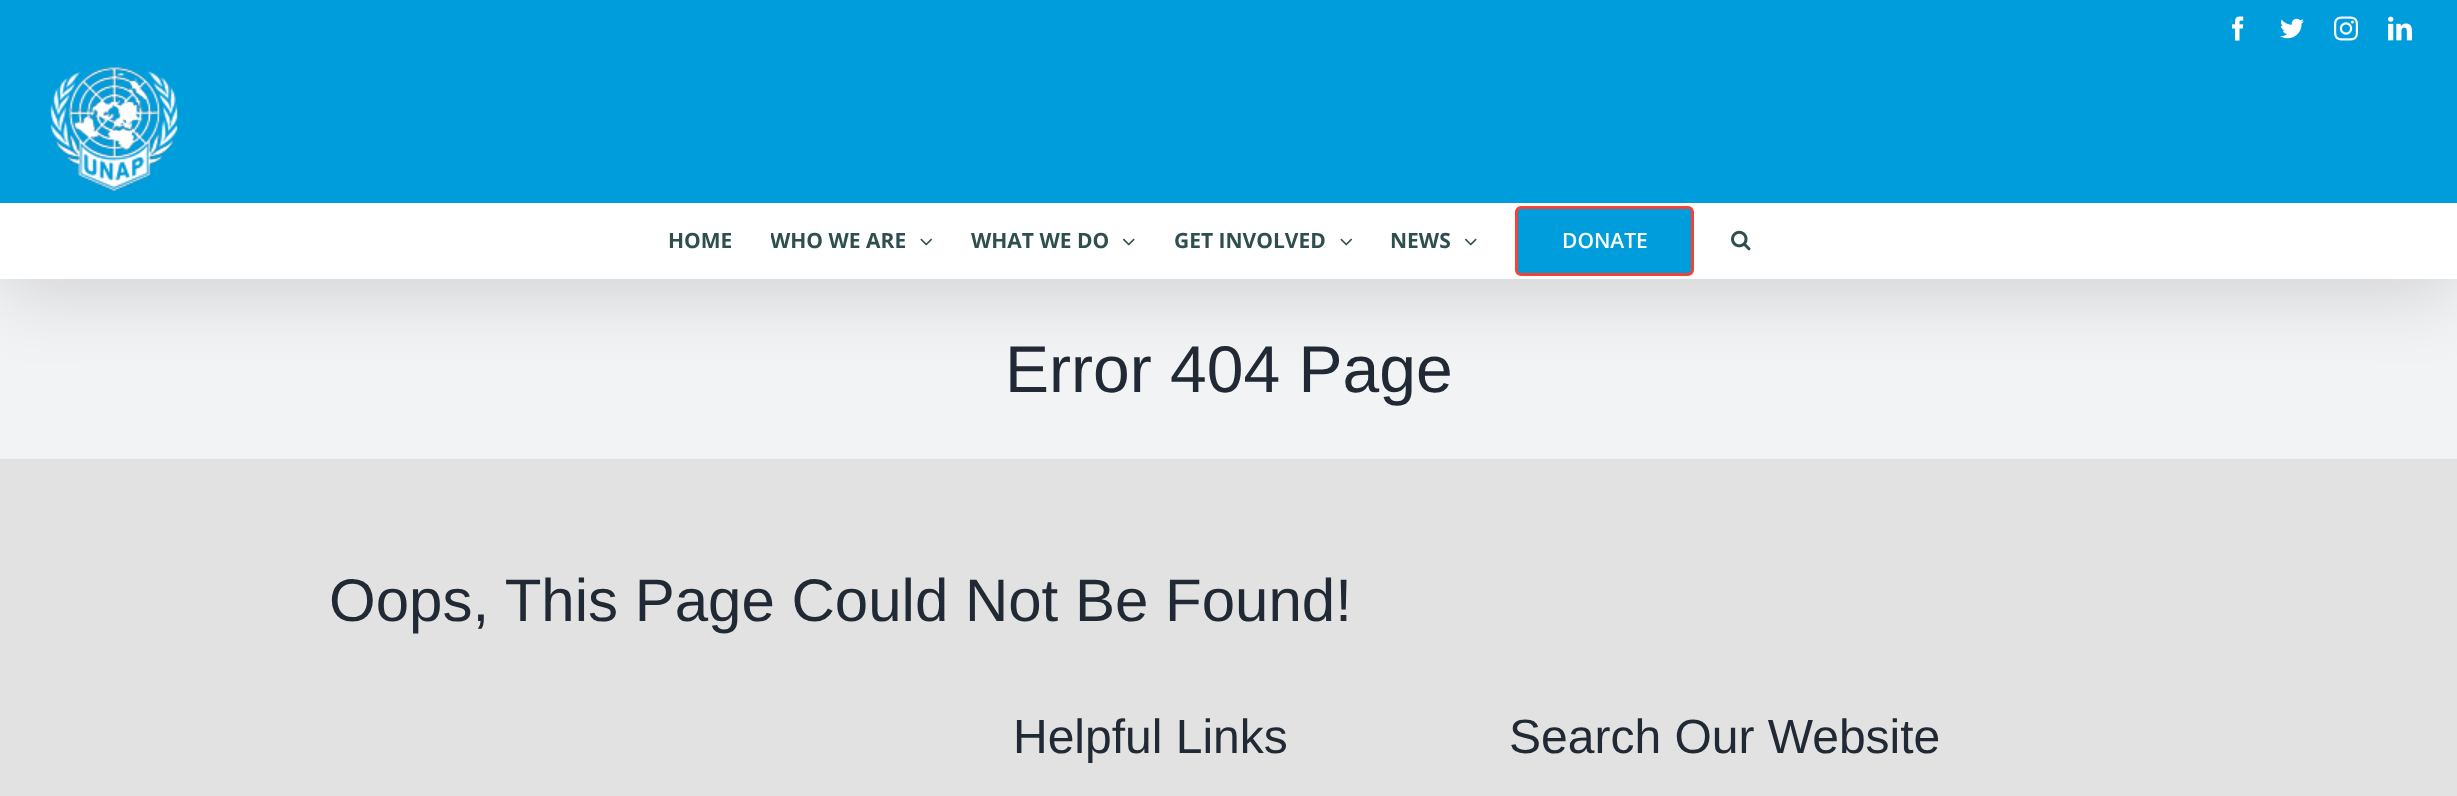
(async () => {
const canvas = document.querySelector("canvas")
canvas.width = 2457
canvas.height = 796
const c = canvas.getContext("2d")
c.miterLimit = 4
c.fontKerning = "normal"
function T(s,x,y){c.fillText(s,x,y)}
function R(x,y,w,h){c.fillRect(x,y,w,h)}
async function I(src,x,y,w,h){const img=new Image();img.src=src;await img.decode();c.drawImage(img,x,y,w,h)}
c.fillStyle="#e2e2e2"
R(0,0,2457,796)
c.fillStyle="#f2f3f5"
R(0,279,2457,180)
c.fillStyle="#00000024"
c.filter="blur(37.5px)"
c.beginPath()
c.rect(3,18,2451,273)
c.fill()
c.filter="none"
c.fillStyle="#009ddc"
R(0,0,2457,203)
await I("1.png",2232,16,12,25)
await I("2.png",2280,18,24,21)
await I("3.png",2334,16,24,25)
await I("4.png",2388,16,24,25)
await I("5.png",50,67,128,124)
c.fillStyle="#fff"
R(0,203,2457,76)
c.font="bold 21px Open Sans"
c.fillStyle="#2f4f4f"
T("HOME",668,248)
c.save()
c.beginPath()
c.rect(771,203,200,75)
c.clip()
T("WHO WE ARE",770,248)
c.restore()
await I("6.png",920,238,13,8)
T("WHAT WE DO",971,248)
await I("7.png",1123,238,12,8)
T("GET INVOLVED",1174,248)
await I("6.png",1340,238,13,8)
T("NEWS",1390,248)
await I("7.png",1465,238,12,8)
c.fillStyle="#009ddc"
c.beginPath()
c.roundRect(1516.5,207.5,176,67,4.5)
c.fill()
c.strokeStyle="#f44336"
c.lineWidth=3
c.stroke()
c.font="600 21px Open Sans"
c.fillStyle="#fff"
T("DONATE",1562,248)
await I("8.png",1731,230,20,21)
c.font="66px Liberation Sans"
c.fillStyle="#212934"
T("Error 404 Page",1005,392)
c.font="60px Liberation Sans"
T("Oops, This Page Could Not Be Found!",329,621)
c.font="48px Liberation Sans"
T("Helpful Links",1013,753)
T("Search Our Website",1509,753)
})()
